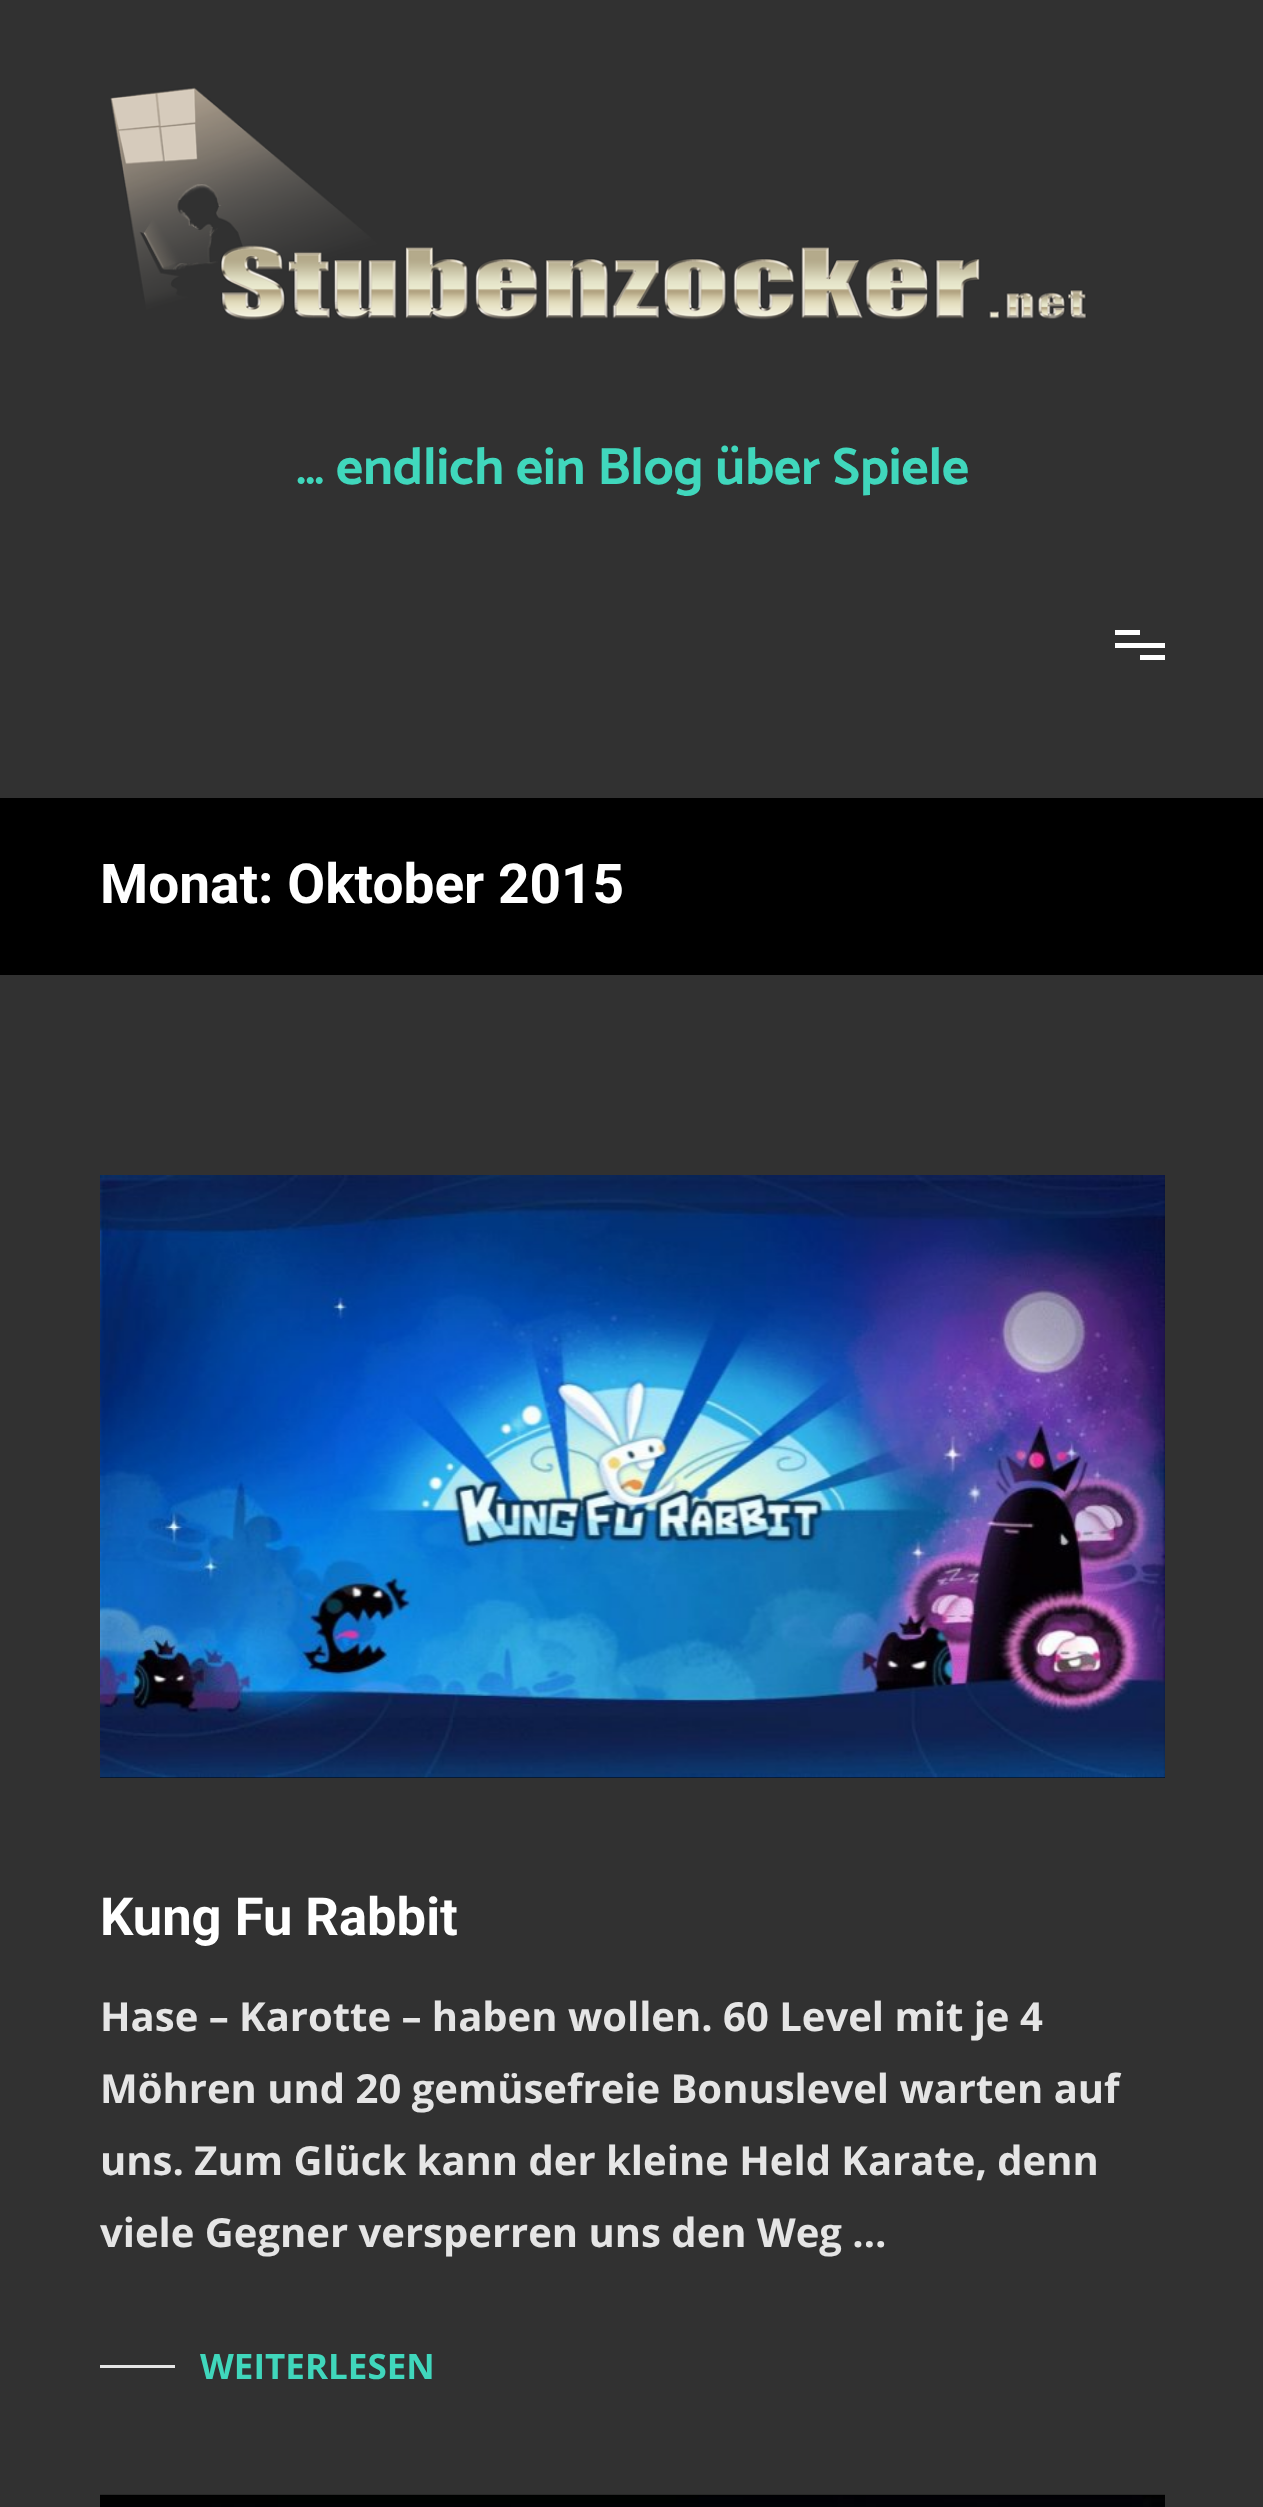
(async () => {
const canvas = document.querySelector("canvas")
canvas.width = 1263
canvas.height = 2507
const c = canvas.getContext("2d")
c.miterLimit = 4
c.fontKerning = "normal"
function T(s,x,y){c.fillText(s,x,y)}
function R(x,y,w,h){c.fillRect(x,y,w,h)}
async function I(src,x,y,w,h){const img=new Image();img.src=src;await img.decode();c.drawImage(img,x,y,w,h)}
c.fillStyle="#313131"
R(0,0,1263,2507)
await I("1.png",110,87,977,233)
c.font="bold 52.5px Catamaran"
c.fillStyle="#40d7bc"
T("… endlich ein Blog über Spiele",296,484)
c.fillStyle="#fff"
R(1115,630,25,5)
R(1115,643,50,5)
R(1140,655,25,5)
c.fillStyle="#000"
R(0,798,1263,177)
c.font="bold 55px Roboto"
c.fillStyle="#fff"
T("Monat: Oktober 2015",100,903)
c.fillStyle="#000"
R(100,1175,1065,603)
await I("2.png",100,1175,1065,603)
c.font="bold 52.5px Roboto"
c.fillStyle="#fff"
T("Kung Fu Rabbit",100,1935)
c.font="bold 40px Open Sans"
c.fillStyle="#e5e5e5"
T("Hase – Karotte – haben wollen. 60 Level mit je 4",100,2031)
T("Möhren und 20 gemüsefreie Bonuslevel warten auf",100,2103)
T("uns. Zum Glück kann der kleine Held Karate, denn",100,2175)
T("viele Gegner versperren uns den Weg …",100,2247)
R(100,2365,75,3)
c.font="bold 35px Open Sans"
c.fillStyle="#40d7bc"
T("WEITERLESEN",200,2379)
c.fillStyle="#000"
R(100,2495,1065,1)
await I("3.png",100,2494,1065,13)
})()
